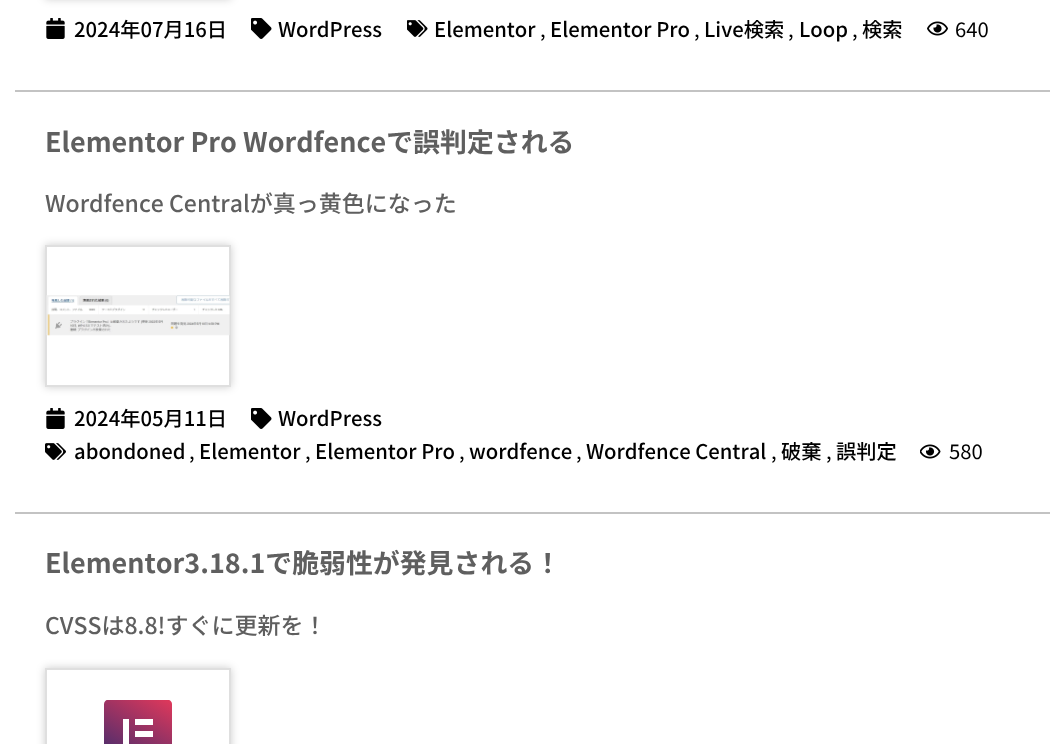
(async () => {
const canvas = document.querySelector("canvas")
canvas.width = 1064
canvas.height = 744
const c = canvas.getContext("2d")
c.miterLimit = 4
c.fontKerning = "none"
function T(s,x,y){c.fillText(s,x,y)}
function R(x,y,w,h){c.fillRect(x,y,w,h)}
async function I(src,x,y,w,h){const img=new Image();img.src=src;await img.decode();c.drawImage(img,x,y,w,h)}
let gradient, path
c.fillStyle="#fff"
R(0,0,1064,744)
c.fillStyle="#00000033"
c.filter="blur(4px)"
c.beginPath()
c.rect(45,-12,186,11)
c.fill()
c.filter="none"
await I("1.png",46,18,19,21)
c.font="500 20.25px Noto Sans JP"
c.fillStyle="#000"
T("2024年07月16日",74,37)
await I("2.png",251,18,21,21)
T("WordPress",278,37)
await I("3.png",407,20,21,17)
T("Elementor",434,37)
c.font="20.25px Noto Sans JP"
T(",",540,37)
c.font="500 20.25px Noto Sans JP"
T("Elementor Pro",550,37)
c.font="20.25px Noto Sans JP"
T(",",694,37)
c.font="500 20.25px Noto Sans JP"
T("Live検索",704,37)
c.font="20.25px Noto Sans JP"
T(",",788,37)
c.font="500 20.25px Noto Sans JP"
T("Loop",799,37)
c.font="20.25px Noto Sans JP"
T(",",852,37)
c.font="500 20.25px Noto Sans JP"
T("検索",862,37)
await I("4.png",927,21,21,15)
c.font="20.25px Noto Sans JP"
T("640",955,37)
c.fillStyle="#c3c3c3"
R(15,90,1035,2)
c.font="bold 26.9px Noto Sans JP"
c.fillStyle="#5f5f5f"
T("Elementor Pro Wordfenceで誤判定される",45,152)
c.font="500 23px Noto Sans JP"
T("Wordfence Centralが真っ黄色になった",45,212)
c.save()
path = new Path2D("M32 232h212v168h-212zm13 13h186v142h-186z")
c.clip(path,"evenodd")
c.fillStyle="#00000033"
c.filter="blur(4px)"
c.beginPath()
c.rect(45,245,186,142)
c.fill()
c.filter="none"
c.restore()
c.strokeStyle="#dfdfdf"
c.lineWidth=2
c.strokeRect(46,246,184,140)
await I("5.png",46,295,184,41)
await I("1.png",46,408,19,21)
c.font="500 20.25px Noto Sans JP"
c.fillStyle="#000"
T("2024年05月11日",74,426)
await I("2.png",251,408,21,21)
T("WordPress",278,426)
await I("6.png",45,443,21,17)
T("abondoned",74,459)
c.font="20.25px Noto Sans JP"
T(",",189,459)
c.font="500 20.25px Noto Sans JP"
T("Elementor",199,459)
c.font="20.25px Noto Sans JP"
T(",",305,459)
c.font="500 20.25px Noto Sans JP"
T("Elementor Pro",315,459)
c.font="20.25px Noto Sans JP"
T(",",459,459)
c.font="500 20.25px Noto Sans JP"
T("wordfence",469,459)
c.font="20.25px Noto Sans JP"
T(",",576,459)
c.font="500 20.25px Noto Sans JP"
T("Wordfence Central",586,459)
c.font="20.25px Noto Sans JP"
T(",",771,459)
c.font="500 20.25px Noto Sans JP"
T("破棄",781,459)
c.font="20.25px Noto Sans JP"
T(",",826,459)
c.font="500 20.25px Noto Sans JP"
T("誤判定",836,459)
await I("7.png",920,444,21,15)
c.font="20.25px Noto Sans JP"
T("580",949,459)
c.fillStyle="#c3c3c3"
R(15,512,1035,2)
c.font="bold 26.9px Noto Sans JP"
c.fillStyle="#5f5f5f"
T("Elementor3.18.1で脆弱性が発見される！",45,573)
c.font="500 23px Noto Sans JP"
T("CVSSは8.8!すぐに更新を！",45,634)
c.save()
path = new Path2D("M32 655h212v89h-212zm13 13h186v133h-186z")
c.clip(path,"evenodd")
c.fillStyle="#00000033"
c.filter="blur(4px)"
c.beginPath()
c.rect(45,668,186,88)
c.fill()
c.filter="none"
c.restore()
c.strokeRect(46,669,184,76)
gradient = c.createLinearGradient(161,695,115,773)
gradient.addColorStop(0,"#de385b")
gradient.addColorStop(1,"#352b6f")
c.fillStyle = gradient
path = new Path2D("M169 700h-62c-1 0-3 2-3 4v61c0 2 2 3 3 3h62c1 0 3-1 3-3v-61c0-2-2-4-3-4")
c.fill(path)
c.fillStyle="#fff"
R(123,719,6,25)
R(135,731,18,6)
R(135,719,18,6)
})()
